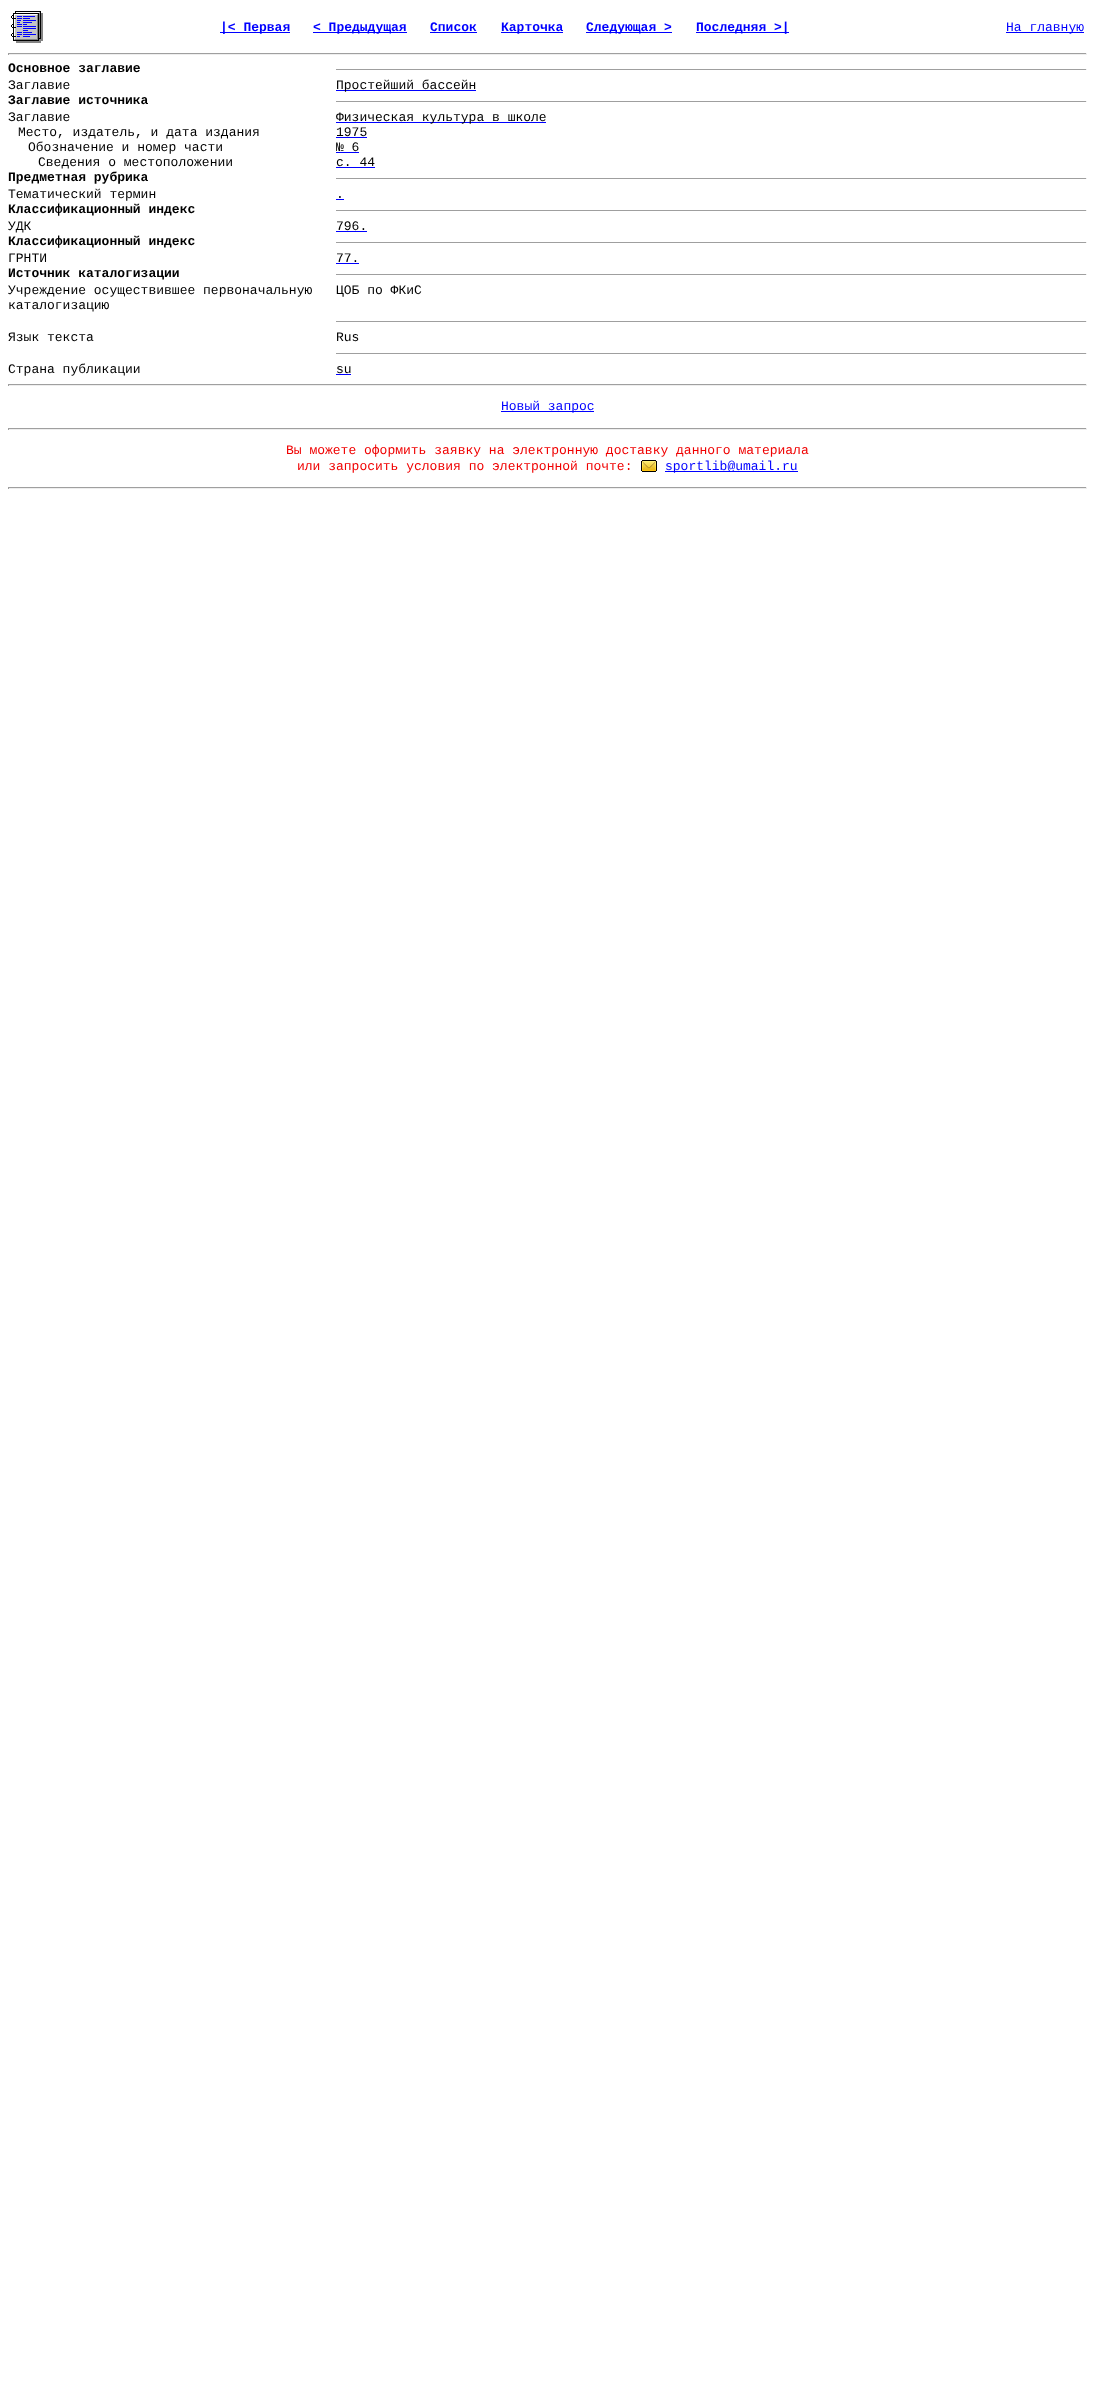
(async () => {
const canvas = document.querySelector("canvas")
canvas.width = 1095
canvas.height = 2408
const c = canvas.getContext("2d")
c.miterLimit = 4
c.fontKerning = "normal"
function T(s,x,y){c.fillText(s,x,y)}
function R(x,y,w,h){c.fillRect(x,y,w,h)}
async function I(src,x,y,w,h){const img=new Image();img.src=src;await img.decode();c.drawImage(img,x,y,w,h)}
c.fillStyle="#fff"
R(0,0,1095,2408)
await I("1.png",11,11,32,32)
c.fillStyle="#00f"
R(220,32,70,1)
c.font="bold 13px Liberation Mono"
T("|< Первая",220,31)
R(313,32,94,1)
T("< Предыдущая",313,31)
T("Список",430,31)
R(430,32,47,1)
R(501,32,62,1)
T("Карточка",501,31)
R(586,32,86,1)
T("Следующая >",586,31)
R(696,32,93,1)
T("Последняя >|",696,31)
R(1006,32,78,1)
c.font="13px Liberation Mono"
T("На главную",1006,31)
c.fillStyle="#9f9f9f"
R(8,53,1079,1)
c.fillStyle="#eee"
R(1086,53,1,2)
R(8,54,1079,1)
c.fillStyle="#9f9f9f"
R(8,53,1,2)
c.font="bold 13px Liberation Mono"
c.fillStyle="#000"
T("Основное заглавие",8,72)
c.fillStyle="#9f9f9f"
R(336,69,751,1)
c.fillStyle="#eee"
R(1086,69,1,1)
c.font="13px Liberation Mono"
c.fillStyle="#000"
T("Заглавие",8,89)
c.fillStyle="#00f"
R(336,90,140,1)
c.fillStyle="#000"
T("Простейший бассейн",336,89)
c.font="bold 13px Liberation Mono"
T("Заглавие источника",8,104)
c.fillStyle="#9f9f9f"
R(336,101,751,1)
c.fillStyle="#eee"
R(1086,101,1,1)
c.font="13px Liberation Mono"
c.fillStyle="#000"
T("Заглавие",8,121)
c.fillStyle="#00f"
R(336,122,210,1)
c.fillStyle="#000"
T("Физическая культура в школе",336,121)
T("Место, издатель, и дата издания",18,136)
T("1975",336,136)
c.fillStyle="#00f"
R(336,137,31,1)
c.fillStyle="#000"
T("Обозначение и номер части",28,151)
T("№ 6",336,151)
c.fillStyle="#00f"
R(336,152,23,1)
c.fillStyle="#000"
T("Сведения о местоположении",38,166)
T("с. 44",336,166)
c.fillStyle="#00f"
R(336,167,39,1)
c.font="bold 13px Liberation Mono"
c.fillStyle="#000"
T("Предметная рубрика",8,181)
c.fillStyle="#9f9f9f"
R(336,178,751,1)
c.fillStyle="#eee"
R(1086,178,1,1)
c.font="13px Liberation Mono"
c.fillStyle="#000"
T("Тематический термин",8,198)
T(".",336,198)
c.fillStyle="#00f"
R(336,199,8,1)
c.font="bold 13px Liberation Mono"
c.fillStyle="#000"
T("Классификационный индекс",8,213)
c.fillStyle="#9f9f9f"
R(336,210,751,1)
c.fillStyle="#eee"
R(1086,210,1,1)
c.font="13px Liberation Mono"
c.fillStyle="#000"
T("УДК",8,230)
T("796.",336,230)
c.fillStyle="#00f"
R(336,231,31,1)
c.font="bold 13px Liberation Mono"
c.fillStyle="#000"
T("Классификационный индекс",8,245)
c.fillStyle="#9f9f9f"
R(336,242,751,1)
c.fillStyle="#eee"
R(1086,242,1,1)
c.font="13px Liberation Mono"
c.fillStyle="#000"
T("ГРНТИ",8,262)
T("77.",336,262)
c.fillStyle="#00f"
R(336,263,23,1)
c.font="bold 13px Liberation Mono"
c.fillStyle="#000"
T("Источник каталогизации",8,277)
c.fillStyle="#9f9f9f"
R(336,274,751,1)
c.fillStyle="#eee"
R(1086,274,1,1)
c.font="13px Liberation Mono"
c.fillStyle="#000"
T("Учреждение осуществившее первоначальную",8,294)
T("каталогизацию",8,309)
T("ЦОБ по ФКиС",336,294)
c.fillStyle="#9f9f9f"
R(336,321,751,1)
c.fillStyle="#eee"
R(1086,321,1,1)
c.fillStyle="#000"
T("Язык текста",8,341)
T("Rus",336,341)
c.fillStyle="#9f9f9f"
R(336,353,751,1)
c.fillStyle="#eee"
R(1086,353,1,1)
c.fillStyle="#000"
T("Страна публикации",8,373)
T("su",336,373)
c.fillStyle="#00f"
R(336,374,15,1)
c.fillStyle="#9f9f9f"
R(8,384,1079,1)
c.fillStyle="#eee"
R(1086,384,1,2)
R(8,385,1079,1)
c.fillStyle="#9f9f9f"
R(8,384,1,2)
c.fillStyle="#00f"
R(501,411,93,1)
T("Новый запрос",501,410)
c.fillStyle="#9f9f9f"
R(8,428,1079,1)
c.fillStyle="#eee"
R(1086,428,1,2)
R(8,429,1079,1)
c.fillStyle="#9f9f9f"
R(8,428,1,2)
c.fillStyle="#f00000"
T("Вы можете оформить заявку на электронную доставку данного материала",286,454)
T("или запросить условия по электронной почте:",297,470)
await I("2.png",641,460,16,12)
c.fillStyle="#00f"
R(665,471,133,1)
T("sportlib@umail.ru",665,470)
c.fillStyle="#9f9f9f"
R(8,487,1079,1)
c.fillStyle="#eee"
R(1086,487,1,2)
R(8,488,1079,1)
c.fillStyle="#9f9f9f"
R(8,487,1,2)
})()
